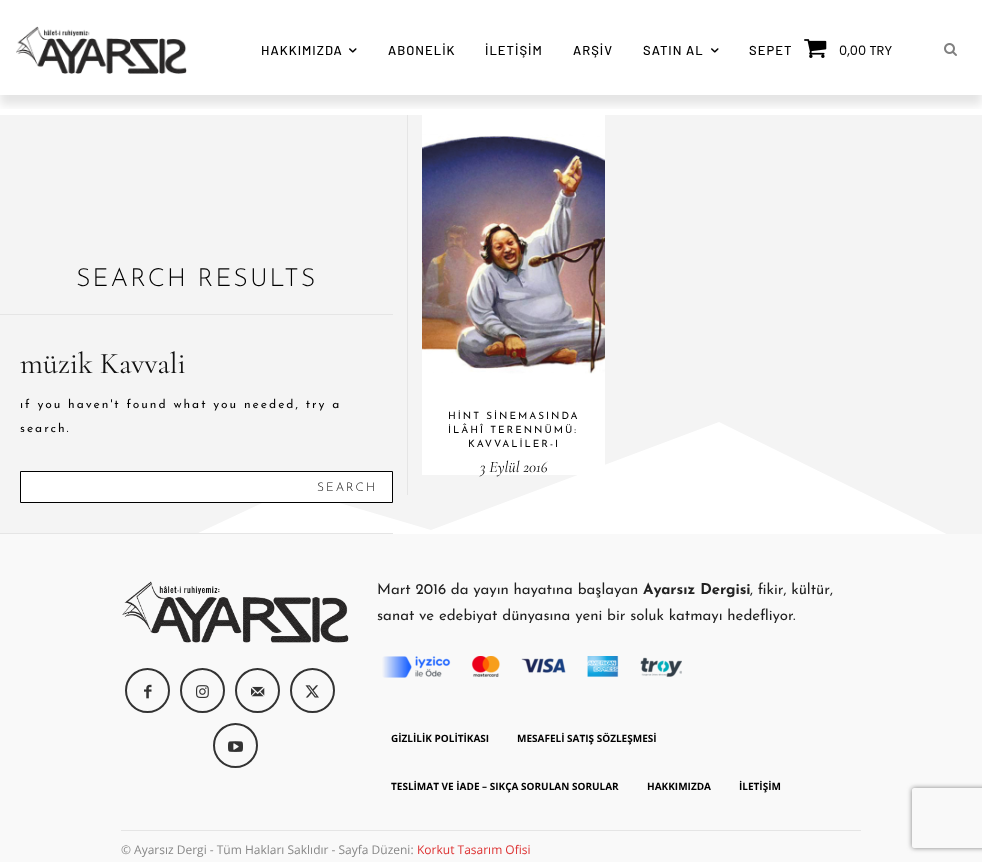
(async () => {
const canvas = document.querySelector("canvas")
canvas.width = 982
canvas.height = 862
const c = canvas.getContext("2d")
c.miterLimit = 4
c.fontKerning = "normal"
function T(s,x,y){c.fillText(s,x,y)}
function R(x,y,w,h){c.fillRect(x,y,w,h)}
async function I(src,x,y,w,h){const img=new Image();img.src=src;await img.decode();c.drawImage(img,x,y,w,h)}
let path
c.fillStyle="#fff"
R(0,0,982,862)
c.fillStyle="#f4f4f4"
R(0,115,982,150)
path = new Path2D("M-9 265v273l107 42l194-91l139 41l288-108l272 134v-291z")
c.fill(path)
c.fillStyle="#e5e5e5"
R(407,115,1,380)
await I("5.png",422,115,183,275)
c.save()
c.beginPath()
c.rect(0,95,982,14)
c.clip()
c.fillStyle="#0000001a"
c.filter="blur(5px)"
c.beginPath()
c.rect(0,15,982,90)
c.fill()
c.filter="none"
c.restore()
await I("1.png",16,26,171,48)
c.letterSpacing="1px"
c.font="500 13px Barlow"
c.fillStyle="#000"
T("HAKKIMIZDA",261,55)
await I("2.png",349,48,8,5)
T("ABONELİK",388,55)
T("İLETİŞİM",485,55)
T("ARŞİV",573,55)
T("SATIN AL",643,55)
await I("2.png",711,48,8,5)
T("SEPET",749,55)
await I("3.png",804,39,23,19)
c.letterSpacing="0px"
c.font="13px Poppins"
T("0,00 TRY",839,55)
await I("4.png",944,43,13,13)
c.letterSpacing="2px"
c.font="300 25px Josefin Sans"
T("SEARCH RESULTS",76,286)
c.fillStyle="#e5e5e5"
R(0,314,393,1)
c.letterSpacing="0px"
c.font="30px Cormorant Garamond"
c.fillStyle="#111"
T("müzik Kavvali",20,373)
c.letterSpacing="2px"
c.font="12px Josefin Sans"
c.fillStyle="#000"
T("ıf you haven't found what you needed, try a",20,408)
T("search.",20,432)
c.fillStyle="#e5e5e5"
R(0,533,393,1)
c.fillStyle="#fff"
c.beginPath()
c.rect(20.5,471.5,372,31)
c.fill()
c.strokeStyle="#000"
c.stroke()
c.font="300 12px Josefin Sans"
c.fillStyle="#000"
T("SEARCH",317,491)
c.fillStyle="#fff"
R(422,390,183,85)
c.font="10px Josefin Sans"
c.fillStyle="#000"
T("HİNT SİNEMASINDA",448,419)
T("İLÂHÎ TERENNÜMÜ:",448,433)
T("KAVVALİLER-I",468,447)
c.letterSpacing="0px"
c.font="italic 300 16px Cormorant Garamond"
T("3 Eylül 2016",480,472)
c.fillStyle="#f9f9f9"
R(0,534,982,328)
await I("6.png",122,581,227,62)
c.beginPath()
c.arc(147.5,690.5,21.5,0,7)
c.strokeStyle="#333"
c.lineWidth=2
c.stroke()
await I("7.png",144,684,8,15)
c.beginPath()
c.arc(202.5,690.5,21.5,0,7)
c.stroke()
await I("8.png",196,685,13,13)
c.beginPath()
c.arc(257.5,690.5,21.5,0,7)
c.stroke()
await I("9.png",251,686,14,11)
c.beginPath()
c.arc(312.5,690.5,21.5,0,7)
c.stroke()
await I("10.png",305,685,14,13)
c.beginPath()
c.arc(235.5,745.5,21.5,0,7)
c.stroke()
await I("11.png",228,741,15,11)
c.font="15px Josefin Sans"
c.fillStyle="#222"
T("Mart 2016 da yayın hayatına başlayan",377,594)
c.font="bold 15px Josefin Sans"
T("Ayarsız Dergisi",643,594)
c.font="15px Josefin Sans"
T(", fikir, kültür,",750,594)
T("sanat ve edebiyat dünyasına yeni bir soluk katmayı hedefliyor.",377,620)
await I("12.png",382,656,300,22)
c.font="bold 10px Open Sans"
c.fillStyle="#000"
T("GİZLİLİK POLİTİKASI",391,742)
T("MESAFELİ SATIŞ SÖZLEŞMESİ",517,742)
T("TESLİMAT VE İADE – SIKÇA SORULAN SORULAR",391,790)
T("HAKKIMIZDA",647,790)
T("İLETİŞİM",739,790)
c.fillStyle="#e5e5e5"
R(121,830,740,1)
c.font="12px Open Sans"
c.fillStyle="#888"
T("© Ayarsız Dergi - Tüm Hakları Saklıdır - Sayfa Düzeni:",121,854)
c.fillStyle="#d33"
T("Korkut Tasarım Ofisi",417,854)
c.save()
path = new Path2D("M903 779h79v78h-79zm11 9h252c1 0 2 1 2 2v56c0 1-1 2-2 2h-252c-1 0-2-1-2-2v-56c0-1 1-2 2-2z")
c.clip(path,"evenodd")
c.fillStyle="#808080"
c.filter="blur(2.5px)"
c.beginPath()
c.roundRect(912,788,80,60,2)
c.fill()
c.filter="none"
c.restore()
})()
